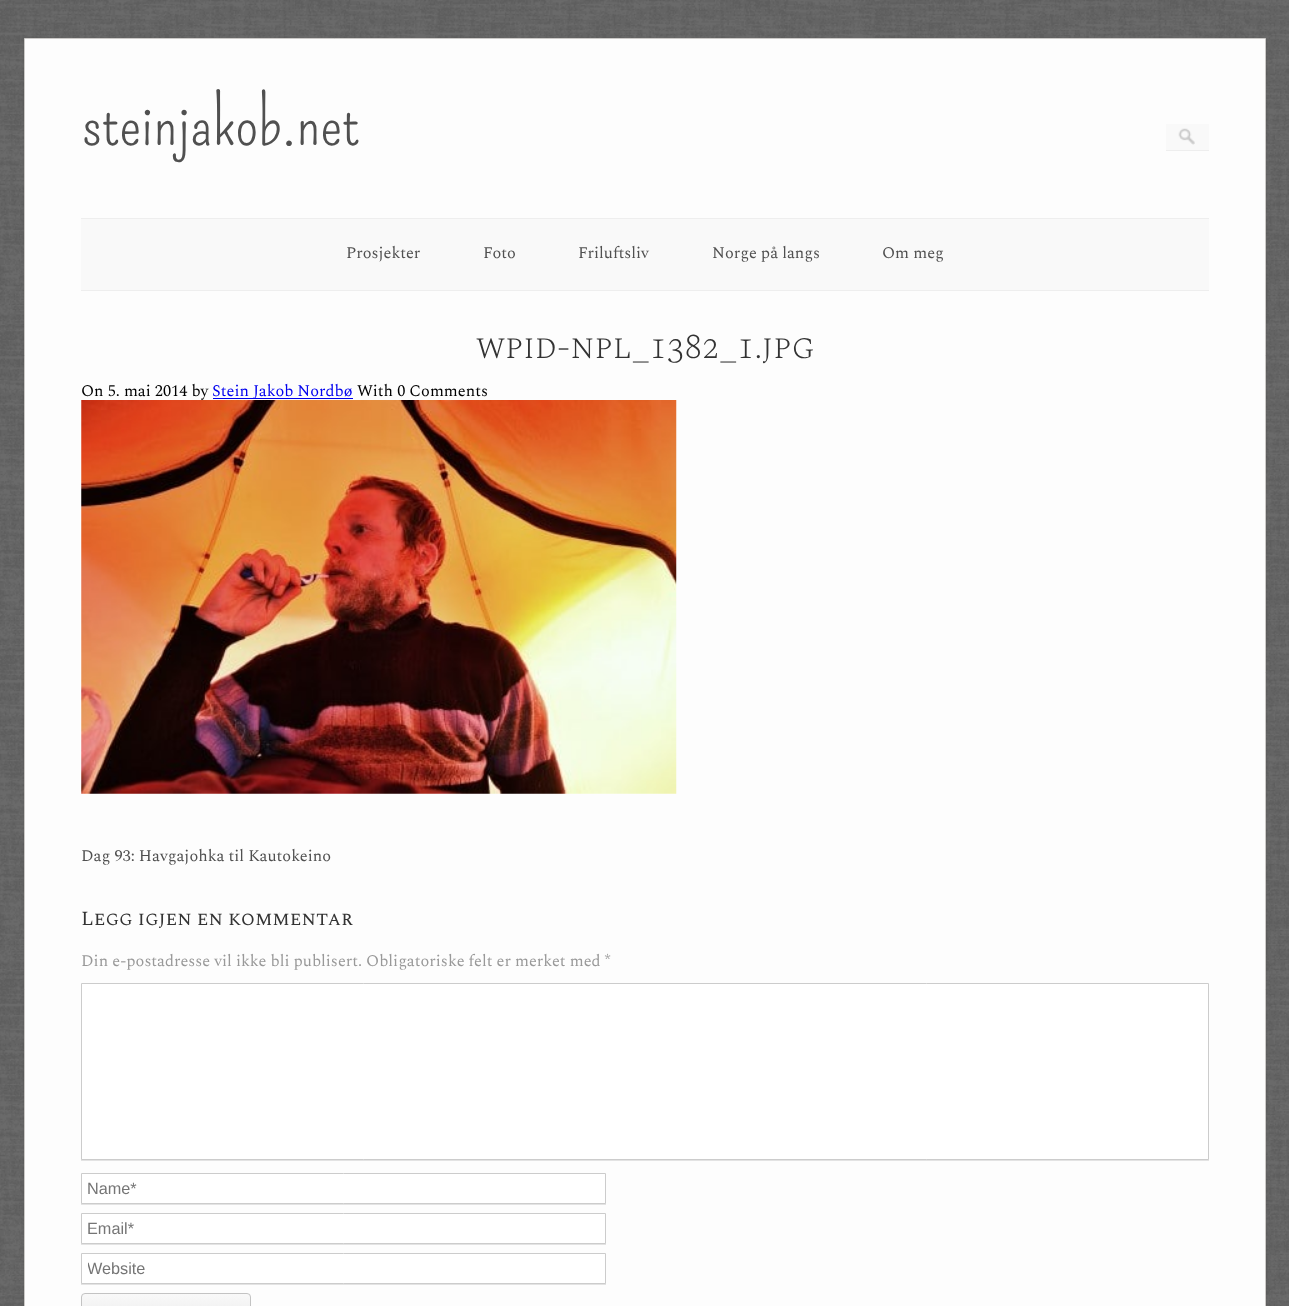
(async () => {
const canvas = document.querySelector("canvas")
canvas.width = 1289
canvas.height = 1306
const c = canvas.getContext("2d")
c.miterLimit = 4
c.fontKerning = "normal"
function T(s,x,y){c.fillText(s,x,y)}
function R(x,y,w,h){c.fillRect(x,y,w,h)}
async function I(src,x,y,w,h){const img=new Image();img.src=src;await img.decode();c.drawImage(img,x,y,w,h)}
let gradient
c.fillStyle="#fff"
R(0,0,1289,1306)
await I("1.png",0,0,1289,1306)
c.fillStyle="#0000001a"
c.filter="blur(1px)"
c.beginPath()
c.rect(24,39,1242,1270)
c.fill()
c.filter="none"
c.fillStyle="#fdfdfd"
c.beginPath()
c.rect(24.5,38.5,1241,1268)
c.fill()
c.strokeStyle="#cbc9c7"
c.stroke()
c.font="65px Pompiere"
c.fillStyle="#505050"
T("steinjakob.net",81,145)
c.fillStyle="#f9f9f9"
R(1166,124,43,26)
await I("2.png",1178,128,17,17)
c.fillStyle="#eee"
R(1166,150,43,1)
c.fillStyle="#f9f9f9"
R(81,219,1128,71)
c.fillStyle="#eee"
R(81,218,1128,1)
R(81,290,1128,1)
c.font="16.25px Spectral"
c.fillStyle="#505050"
T("Prosjekter",346,258)
T("Foto",483,258)
T("Friluftsliv",578,258)
T("Norge på langs",712,258)
T("Om meg",882,258)
c.font="200 35px Spectral SC"
c.fillStyle="#333"
T("wpid-npl_1382_1.jpg",476,358)
c.font="16.25px Spectral"
c.fillStyle="#000"
T("On 5. mai 2014 by",81,396)
c.fillStyle="#00e"
R(213,398,140,1)
T("Stein Jakob Nordbø",212,396)
c.fillStyle="#000"
T("With 0 Comments",357,396)
await I("3.png",81,400,596,394)
c.fillStyle="#505050"
T("Dag 93: Havgajohka til Kautokeino",81,861)
c.font="20px Spectral SC"
c.fillStyle="#333"
T("Legg igjen en kommentar",81,925)
c.font="16.25px Spectral"
c.fillStyle="#999"
T("Din e-postadresse vil ikke bli publisert. Obligatoriske felt er merket med *",81,966)
c.fillStyle="#0000001a"
c.filter="blur(0.5px)"
c.beginPath()
c.rect(81,984,1128,177)
c.fill()
c.filter="none"
c.fillStyle="#fff"
c.beginPath()
c.rect(81.5,983.5,1127,176)
c.fill()
c.strokeStyle="#ccc"
c.stroke()
c.fillStyle="#0000001a"
c.filter="blur(0.5px)"
c.beginPath()
c.rect(81,1174,525,31)
c.fill()
c.filter="none"
c.fillStyle="#fff"
c.beginPath()
c.rect(81.5,1173.5,524,30)
c.fill()
c.stroke()
c.font="16.25px Liberation Sans"
c.fillStyle="#757575"
T("Name*",87,1194)
c.fillStyle="#0000001a"
c.filter="blur(0.5px)"
c.beginPath()
c.rect(81,1214,525,31)
c.fill()
c.filter="none"
c.fillStyle="#fff"
c.beginPath()
c.rect(81.5,1213.5,524,30)
c.fill()
c.stroke()
c.fillStyle="#757575"
T("Email*",87,1234)
c.fillStyle="#0000001a"
c.filter="blur(0.5px)"
c.beginPath()
c.rect(81,1254,525,31)
c.fill()
c.filter="none"
c.fillStyle="#fff"
c.beginPath()
c.rect(81.5,1253.5,524,30)
c.fill()
c.stroke()
c.save()
c.beginPath()
c.rect(88,1259,512,19)
c.clip()
c.fillStyle="#757575"
T("Website",87,1274)
c.restore()
c.save()
c.beginPath()
c.roundRect(81,1293,170,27,4)
c.clip()
gradient = c.createLinearGradient(166,1294,166,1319)
gradient.addColorStop(0,"#f9f9f9")
gradient.addColorStop(1,"#ededed")
c.fillStyle = gradient
R(81,1294,170,12)
c.restore()
c.beginPath()
c.roundRect(81.5,1293.5,169,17,3.5)
c.strokeStyle="#c3c3c3"
c.stroke()
})()
